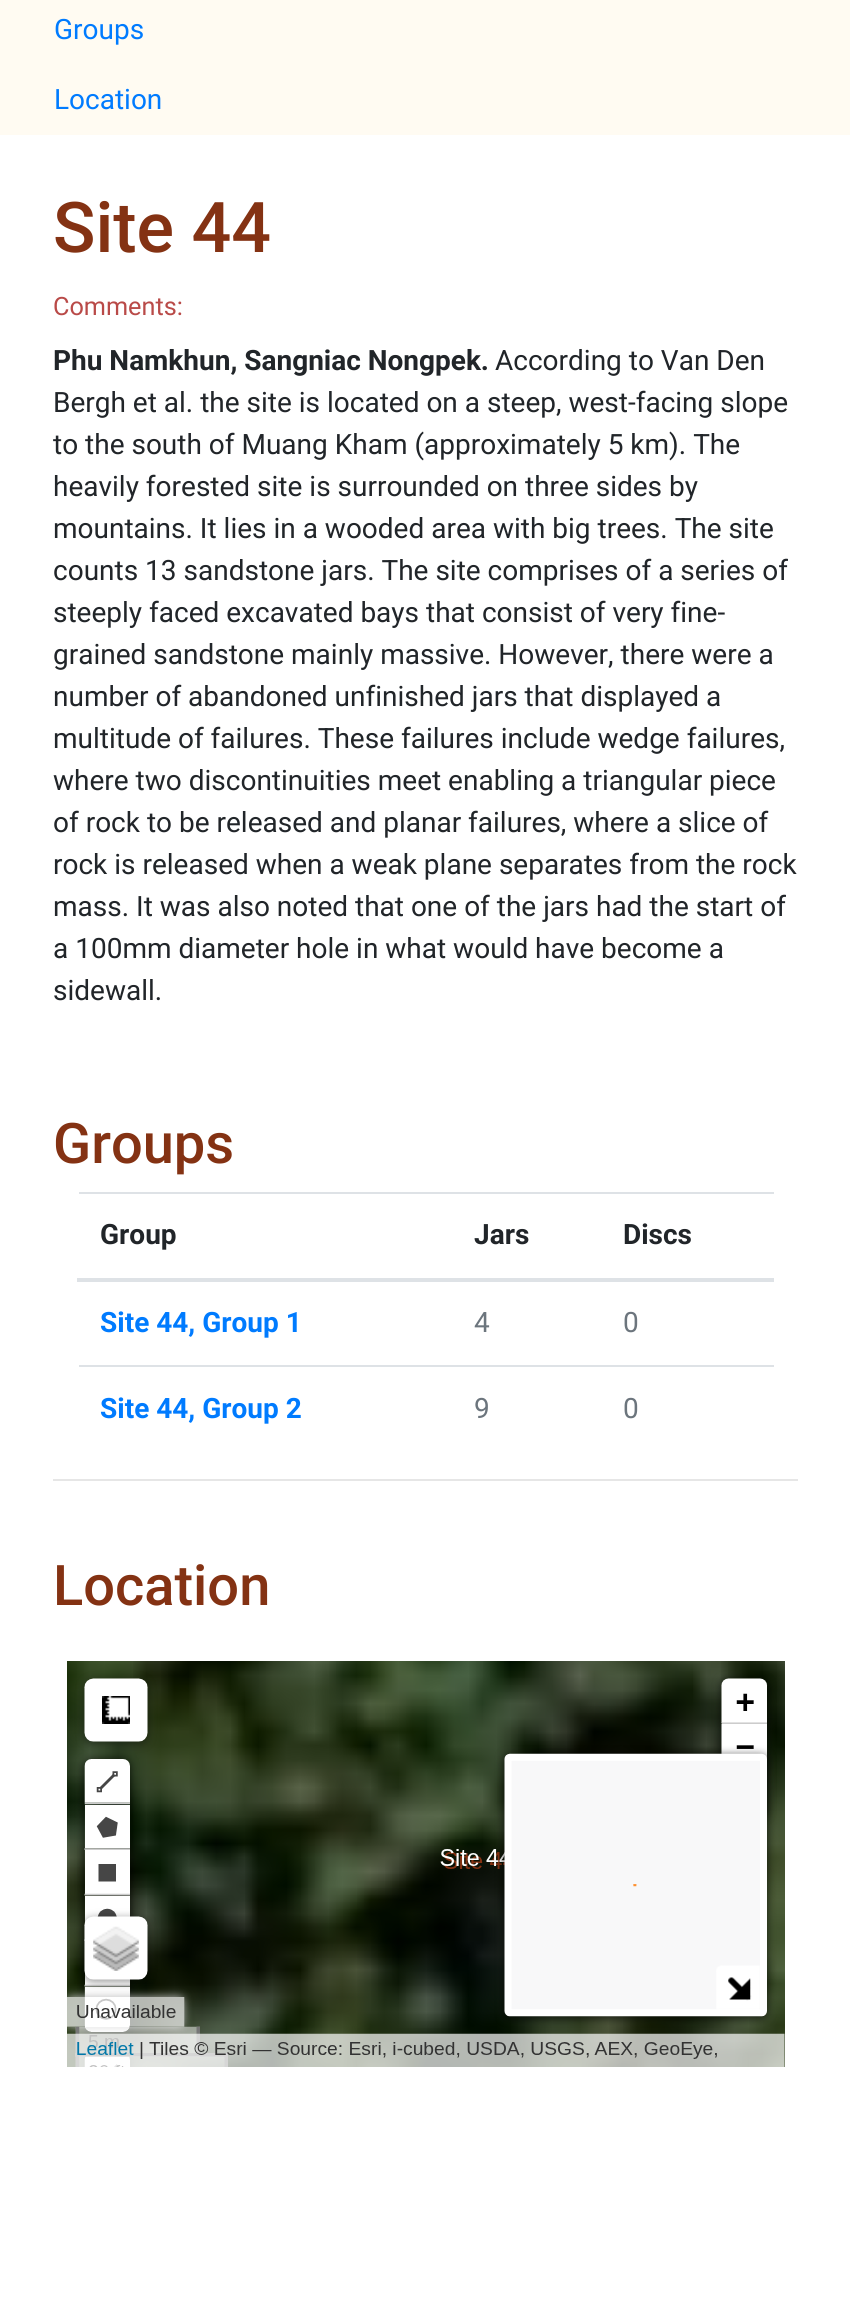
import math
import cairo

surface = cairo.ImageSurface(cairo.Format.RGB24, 850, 2298)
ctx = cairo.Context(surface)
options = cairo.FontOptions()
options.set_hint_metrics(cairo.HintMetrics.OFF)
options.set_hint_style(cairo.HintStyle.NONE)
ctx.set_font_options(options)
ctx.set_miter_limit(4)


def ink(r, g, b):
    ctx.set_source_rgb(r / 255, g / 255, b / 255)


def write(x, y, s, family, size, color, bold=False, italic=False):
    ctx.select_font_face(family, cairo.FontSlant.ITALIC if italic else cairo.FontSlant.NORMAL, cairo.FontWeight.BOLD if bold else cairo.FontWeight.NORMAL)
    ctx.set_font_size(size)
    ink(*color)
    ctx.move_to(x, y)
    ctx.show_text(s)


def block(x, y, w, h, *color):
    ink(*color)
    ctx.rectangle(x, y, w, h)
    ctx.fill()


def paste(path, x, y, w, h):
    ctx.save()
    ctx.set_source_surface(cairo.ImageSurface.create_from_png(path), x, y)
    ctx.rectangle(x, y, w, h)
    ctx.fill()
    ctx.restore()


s1 = dict(family="Roboto", size=28, color=(0, 123, 255))
s2 = dict(family="Roboto Medium", size=70, color=(132, 50, 19))
s3 = dict(family="Roboto", size=25.25, color=(185, 74, 72))
s4 = dict(family="Roboto", size=28, color=(33, 37, 41), bold=True)
s5 = dict(family="Roboto", size=28, color=(33, 37, 41))
s6 = dict(family="Roboto Medium", size=56, color=(132, 50, 19))
s7 = dict(family="Roboto", size=28, color=(0, 123, 255), bold=True)
s8 = dict(family="Roboto", size=28, color=(108, 117, 125))

ink(255, 255, 255)
ctx.paint()
block(0, 0, 850, 135, 255, 251, 242)
write(54, 39, "Groups", **s1)
write(54, 109, "Location", **s1)
write(53, 252, "Site 44", **s2)
write(53, 315, "Comments:", **s3)
write(53, 370, "Phu Namkhun, Sangniac Nongpek.", **s4)
write(495, 370, "According to Van Den", **s5)
write(53, 412, "Bergh et al. the site is located on a steep, west-facing slope", **s5)
write(53, 454, "to the south of Muang Kham (approximately 5 km). The", **s5)
write(53, 496, "heavily forested site is surrounded on three sides by", **s5)
write(53, 538, "mountains. It lies in a wooded area with big trees. The site", **s5)
write(53, 580, "counts 13 sandstone jars. The site comprises of a series of", **s5)
write(53, 622, "steeply faced excavated bays that consist of very fine-", **s5)
write(53, 664, "grained sandstone mainly massive. However, there were a", **s5)
write(53, 706, "number of abandoned unfinished jars that displayed a", **s5)
write(53, 748, "multitude of failures. These failures include wedge failures,", **s5)
write(53, 790, "where two discontinuities meet enabling a triangular piece", **s5)
write(53, 832, "of rock to be released and planar failures, where a slice of", **s5)
write(53, 874, "rock is released when a weak plane separates from the rock", **s5)
write(53, 916, "mass. It was also noted that one of the jars had the start of", **s5)
write(53, 958, "a 100mm diameter hole in what would have become a", **s5)
write(53, 1000, "sidewall.", **s5)
write(53, 1163, "Groups", **s6)
write(100, 1244, "Group", **s4)
write(474, 1244, "Jars", **s4)
block(79, 1192, 695, 2, 222, 226, 230)
block(77, 1278, 697, 4, 222, 226, 230)
write(623, 1244, "Discs", **s4)
write(100, 1332, "Site 44, Group 1", **s7)
write(474, 1332, "4", **s8)
write(623, 1332, "0", **s8)
write(100, 1418, "Site 44, Group 2", **s7)
write(474, 1418, "9", **s8)
block(79, 1365, 695, 2, 222, 226, 230)
write(623, 1418, "0", **s8)
block(53, 1479, 745, 2, 230, 230, 230)
write(53, 1605, "Location", **s6)
paste("pic1.png", 67, 1661, 718, 406)
surface.write_to_png("screenshot.png")
